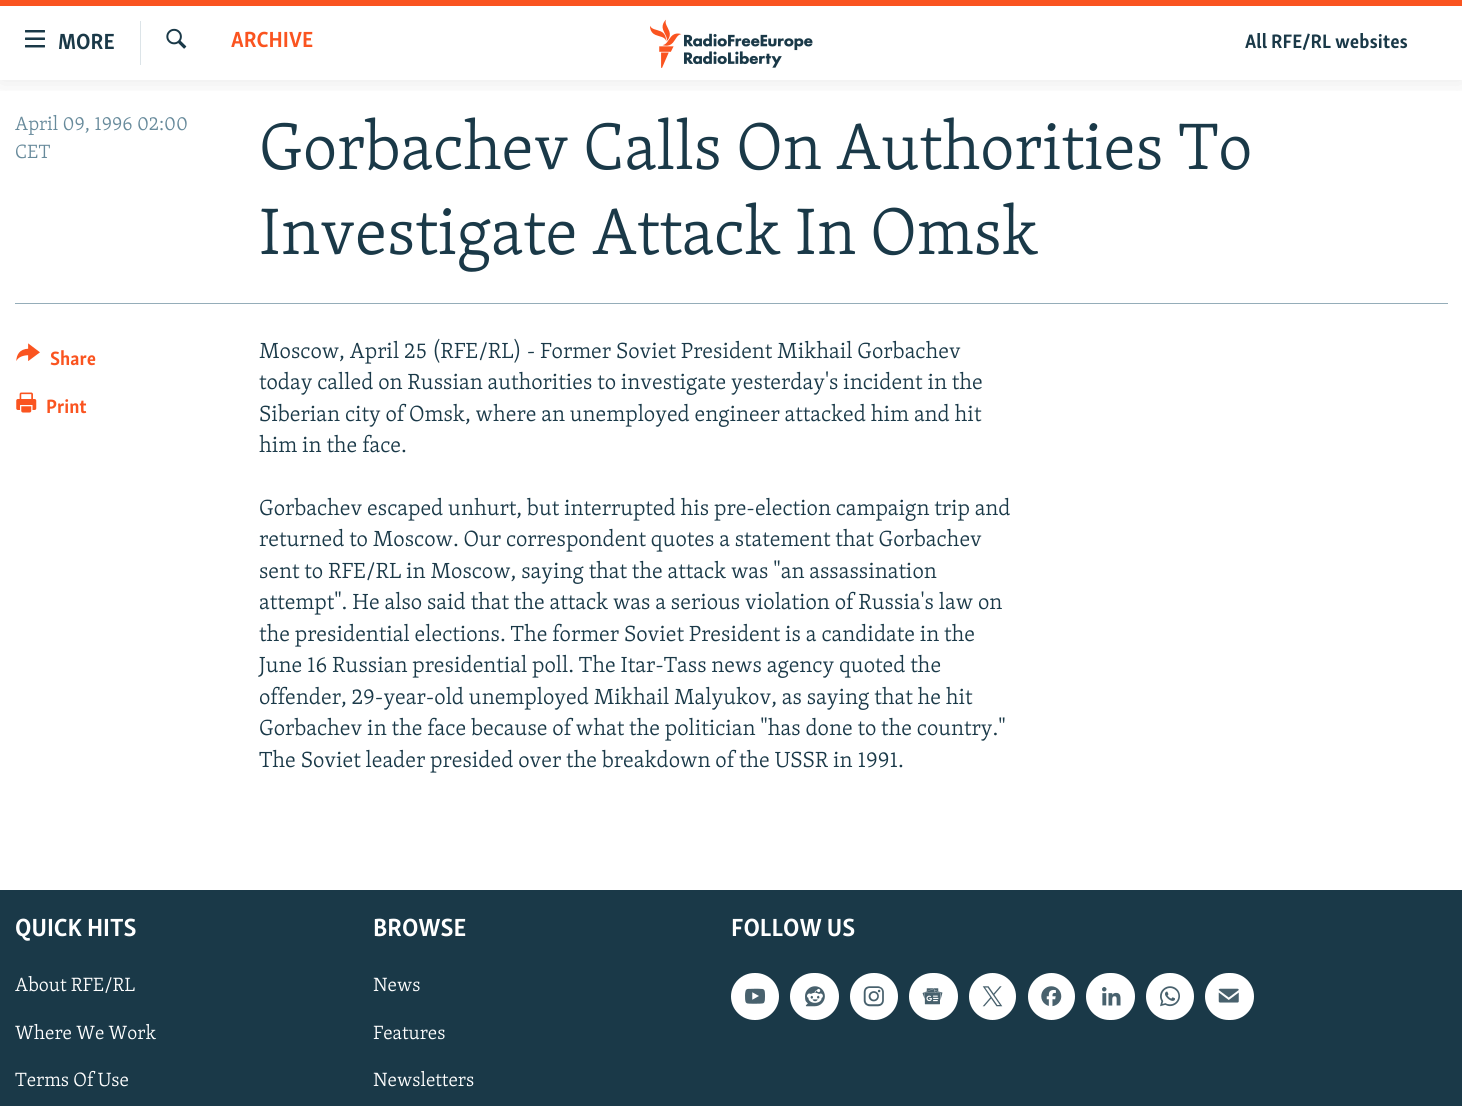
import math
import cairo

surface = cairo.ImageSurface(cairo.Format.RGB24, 1462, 1106)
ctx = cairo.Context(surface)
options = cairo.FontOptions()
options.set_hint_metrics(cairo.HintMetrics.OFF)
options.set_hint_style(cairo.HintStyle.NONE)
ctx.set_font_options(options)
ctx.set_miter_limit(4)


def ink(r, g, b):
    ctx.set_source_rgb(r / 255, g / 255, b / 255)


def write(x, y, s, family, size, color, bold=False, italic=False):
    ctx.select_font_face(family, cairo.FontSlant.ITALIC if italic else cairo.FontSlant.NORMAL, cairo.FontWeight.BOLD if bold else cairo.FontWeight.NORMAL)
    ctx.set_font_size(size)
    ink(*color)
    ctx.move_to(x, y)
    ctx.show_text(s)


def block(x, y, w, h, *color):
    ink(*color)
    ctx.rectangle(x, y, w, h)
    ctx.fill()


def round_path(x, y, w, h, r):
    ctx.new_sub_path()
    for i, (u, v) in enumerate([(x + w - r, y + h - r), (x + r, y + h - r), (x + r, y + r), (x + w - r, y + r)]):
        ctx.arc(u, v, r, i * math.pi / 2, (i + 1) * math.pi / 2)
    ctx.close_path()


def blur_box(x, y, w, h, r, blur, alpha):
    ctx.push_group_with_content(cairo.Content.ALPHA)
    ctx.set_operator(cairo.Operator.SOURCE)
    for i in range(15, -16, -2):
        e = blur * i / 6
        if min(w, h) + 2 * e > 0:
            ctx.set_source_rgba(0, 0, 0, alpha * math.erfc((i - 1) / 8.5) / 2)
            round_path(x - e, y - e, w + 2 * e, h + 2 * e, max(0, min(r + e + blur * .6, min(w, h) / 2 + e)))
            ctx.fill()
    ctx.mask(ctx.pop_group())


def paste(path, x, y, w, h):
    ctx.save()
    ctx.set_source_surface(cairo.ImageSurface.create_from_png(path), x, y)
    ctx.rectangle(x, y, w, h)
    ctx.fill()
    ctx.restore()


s1 = dict(family="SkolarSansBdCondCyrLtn", size=22.5, color=(26, 57, 72), bold=True)
s2 = dict(family="SkolarSansBdCondCyrLtn", size=22.5, color=(250, 84, 32), bold=True)
s3 = dict(family="SkolarSansBdCondCyrLtn", size=20, color=(26, 57, 72), bold=True)
s4 = dict(family="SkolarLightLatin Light", size=19.75, color=(103, 138, 155))
s5 = dict(family="SkolarLightLatin Light", size=67.5, color=(26, 57, 72))
s6 = dict(family="SkolarSansBdCondCyrLtn", size=19.75, color=(250, 84, 32), bold=True)
s7 = dict(family="SkolarLightLatin Light", size=22.5, color=(26, 57, 72))
s8 = dict(family="SkolarSansBdCondCyrLtn", size=25.5, color=(255, 255, 255), bold=True)
s9 = dict(family="SkolarLightLatin Light", size=19.75, color=(255, 255, 255))

ink(255, 255, 255)
ctx.paint()
ctx.save()
ctx.rectangle(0, 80, 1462, 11)
ctx.clip()
ink(0, 0, 0)
blur_box(0, 0, 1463, 80, 0, 12.5, 0.1)
ctx.restore()
block(0, 0, 1462, 6, 250, 84, 32)
paste("pic1.png", 25, 30, 20, 18)
write(58, 49, "MORE", **s1)
block(140, 21, 1, 44, 220, 228, 232)
paste("pic2.png", 166, 28, 21, 21)
write(231, 47, "ARCHIVE", **s2)
paste("pic3.png", 650, 19, 163, 49)
write(1245, 48, "All RFE/RL websites", **s3)
write(15, 130, "April 09, 1996 02:00", **s4)
write(15, 158, "CET", **s4)
write(259, 169, "Gorbachev Calls On Authorities To", **s5)
write(259, 254, "Investigate Attack In Omsk", **s5)
block(15, 303, 1433, 1, 149, 173, 185)
paste("pic4.png", 16, 343, 24, 18)
write(50, 365, "Share", **s6)
paste("pic5.png", 16, 392, 21, 21)
write(46, 413, "Print", **s6)
write(259, 358, "Moscow, April 25 (RFE/RL) - Former Soviet President Mikhail Gorbachev", **s7)
write(259, 389, "today called on Russian authorities to investigate yesterday's incident in the", **s7)
write(259, 421, "Siberian city of Omsk, where an unemployed engineer attacked him and hit", **s7)
write(259, 452, "him in the face.", **s7)
write(259, 515, "Gorbachev escaped unhurt, but interrupted his pre-election campaign trip and", **s7)
write(259, 546, "returned to Moscow. Our correspondent quotes a statement that Gorbachev", **s7)
write(259, 578, "sent to RFE/RL in Moscow, saying that the attack was \"an assassination", **s7)
write(259, 609, "attempt\". He also said that the attack was a serious violation of Russia's law on", **s7)
write(259, 641, "the presidential elections. The former Soviet President is a candidate in the", **s7)
write(259, 672, "June 16 Russian presidential poll. The Itar-Tass news agency quoted the", **s7)
write(259, 704, "offender, 29-year-old unemployed Mikhail Malyukov, as saying that he hit", **s7)
write(259, 735, "Gorbachev in the face because of what the politician \"has done to the country.\"", **s7)
write(259, 767, "The Soviet leader presided over the breakdown of the USSR in 1991.", **s7)
block(0, 890, 1462, 216, 26, 57, 72)
write(15, 936, "QUICK HITS", **s8)
write(15, 991, "About RFE/RL", **s9)
write(15, 1039, "Where We Work", **s9)
write(15, 1086, "Terms Of Use", **s9)
write(373, 936, "BROWSE", **s8)
write(373, 991, "News", **s9)
write(373, 1039, "Features", **s9)
write(373, 1086, "Newsletters", **s9)
write(731, 936, "FOLLOW US", **s8)
round_path(731, 973, 48, 47, 23.5)
ctx.fill()
paste("pic6.png", 745, 988, 20, 16)
round_path(790, 973, 49, 47, 23.5)
ctx.fill()
paste("pic7.png", 805, 986, 20, 21)
round_path(850, 973, 48, 47, 23.5)
ctx.fill()
paste("pic8.png", 863, 986, 21, 21)
round_path(909, 973, 49, 47, 23.5)
ctx.fill()
paste("pic9.png", 922, 988, 21, 17)
ctx.arc(992.5, 996.5, 23.5, 0, 2 * math.pi)
ctx.fill()
paste("pic10.png", 982, 986, 21, 21)
ctx.arc(1051.5, 996.5, 23.5, 0, 2 * math.pi)
ctx.fill()
paste("pic11.png", 1041, 986, 21, 21)
round_path(1086, 973, 49, 47, 23.5)
ctx.fill()
paste("pic12.png", 1102, 987, 19, 19)
round_path(1146, 973, 48, 47, 23.5)
ctx.fill()
paste("pic13.png", 1160, 986, 20, 21)
round_path(1205, 973, 49, 47, 23.5)
ctx.fill()
paste("pic14.png", 1218, 988, 21, 15)
surface.write_to_png("screenshot.png")
